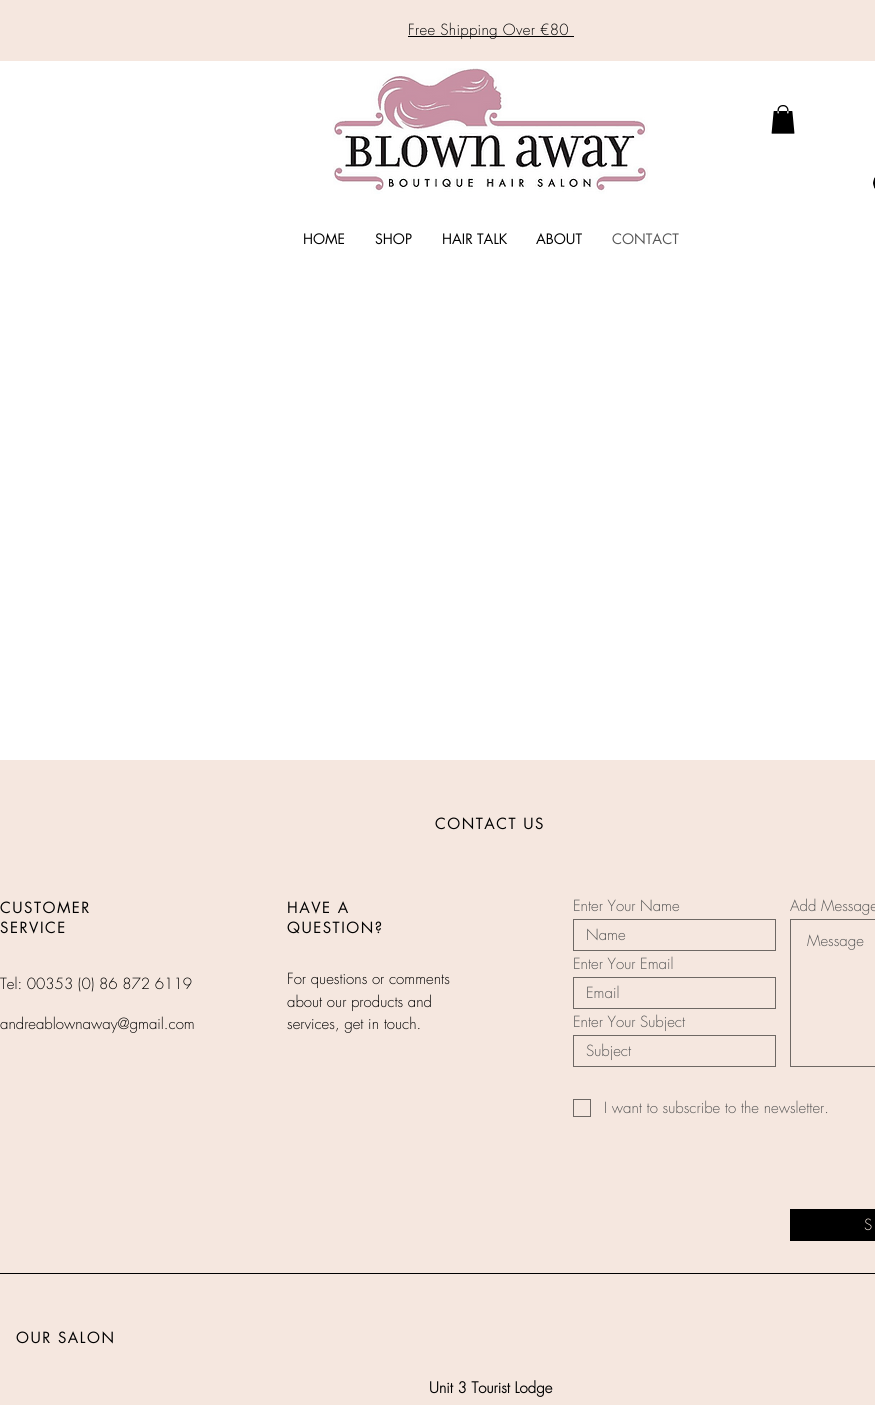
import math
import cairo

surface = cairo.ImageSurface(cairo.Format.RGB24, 875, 1405)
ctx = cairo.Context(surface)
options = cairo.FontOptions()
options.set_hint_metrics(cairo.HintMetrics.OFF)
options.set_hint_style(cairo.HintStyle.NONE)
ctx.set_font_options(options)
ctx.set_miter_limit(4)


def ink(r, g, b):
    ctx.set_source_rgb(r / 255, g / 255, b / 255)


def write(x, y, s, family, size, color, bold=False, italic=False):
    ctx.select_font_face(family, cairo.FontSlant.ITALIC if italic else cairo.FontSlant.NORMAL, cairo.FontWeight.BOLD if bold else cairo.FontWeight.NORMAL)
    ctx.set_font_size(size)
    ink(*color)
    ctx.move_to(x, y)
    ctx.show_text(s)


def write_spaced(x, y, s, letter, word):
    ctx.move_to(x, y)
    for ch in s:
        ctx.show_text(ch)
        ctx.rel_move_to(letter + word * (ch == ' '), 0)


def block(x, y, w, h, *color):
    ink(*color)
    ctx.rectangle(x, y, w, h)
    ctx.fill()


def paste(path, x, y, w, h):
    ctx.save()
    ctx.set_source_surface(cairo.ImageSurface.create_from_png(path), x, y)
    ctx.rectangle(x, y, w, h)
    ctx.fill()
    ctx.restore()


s1 = dict(family="futura", size=14, color=(0, 0, 0))
s2 = dict(family="futura", size=14, color=(85, 85, 85))
s3 = dict(family="futura Light", size=15, color=(85, 85, 85))
s4 = dict(family="futura Light", size=15, color=(245, 231, 223))
s5 = dict(family="futura Light", size=15, color=(0, 0, 0))
s6 = dict(family="futura", size=15, color=(0, 0, 0), bold=True)

ink(255, 255, 255)
ctx.paint()
block(0, 0, 875, 61, 245, 231, 223)
block(408, 36, 166, 1, 0, 0, 0)
ctx.select_font_face("futura Light")
ctx.set_font_size(15)
write_spaced(408, 35, "Free Shipping Over €80", 0.3, 0)
paste("pic1.png", 333, 68, 315, 126)
paste("pic2.png", 873, 177, 2, 12)
write(303, 244, "HOME", **s1)
write(375, 244, "SHOP", **s1)
write(442, 244, "HAIR TALK", **s1)
write(536, 244, "ABOUT", **s1)
write(612, 244, "CONTACT", **s2)
paste("pic3.png", 771, 105, 24, 29)
block(0, 760, 875, 645, 245, 231, 223)
ctx.set_font_size(15)
ink(0, 0, 0)
write_spaced(435, 829, "CONTACT US", 1.5, 0)
write_spaced(0, 913, "CUSTOMER", 1.5, 0)
write_spaced(0, 933, "SERVICE", 1.5, 0)
write_spaced(287, 913, "HAVE A", 1.5, 0)
write_spaced(287, 933, "QUESTION?", 1.5, 0)
write(573, 911, "Enter Your Name", **s3)
ctx.rectangle(573.5, 919.5, 202, 31)
ink(110, 104, 100)
ctx.set_line_width(1)
ctx.stroke()
write(586, 940, "Name", **s3)
write(790, 911, "Add Message", **s3)
ctx.rectangle(790.5, 919.5, 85, 147)
ink(110, 104, 100)
ctx.stroke()
write(807, 946, "Message", **s3)
write(573, 969, "Enter Your Email", **s3)
ctx.rectangle(573.5, 977.5, 202, 31)
ink(110, 104, 100)
ctx.stroke()
write(586, 998, "Email", **s3)
write(573, 1027, "Enter Your Subject", **s3)
ctx.rectangle(573.5, 1035.5, 202, 31)
ink(110, 104, 100)
ctx.stroke()
write(586, 1056, "Subject", **s3)
ctx.rectangle(573.5, 1099.5, 17, 17)
ink(110, 104, 100)
ctx.stroke()
write(604, 1113, "I want to subscribe to the newsletter.", **s3)
block(790, 1209, 85, 32, 0, 0, 0)
write(864, 1230, "S", **s4)
write(0, 989, "Tel: 00353 (0) 86 872 6119", **s5)
write(0, 1029, "andreablownaway@gmail.com", **s5)
write(287, 984, "For questions or comments", **s5)
write(287, 1007, "about our products and", **s5)
write(287, 1029, "services, get in touch.", **s5)
ctx.select_font_face("futura")
write_spaced(16, 1343, "OUR SALON", 1.5, 0)
write(429, 1393, "Unit 3 Tourist Lodge", **s6)
block(0, 1273, 875, 1, 0, 0, 0)
surface.write_to_png("screenshot.png")
